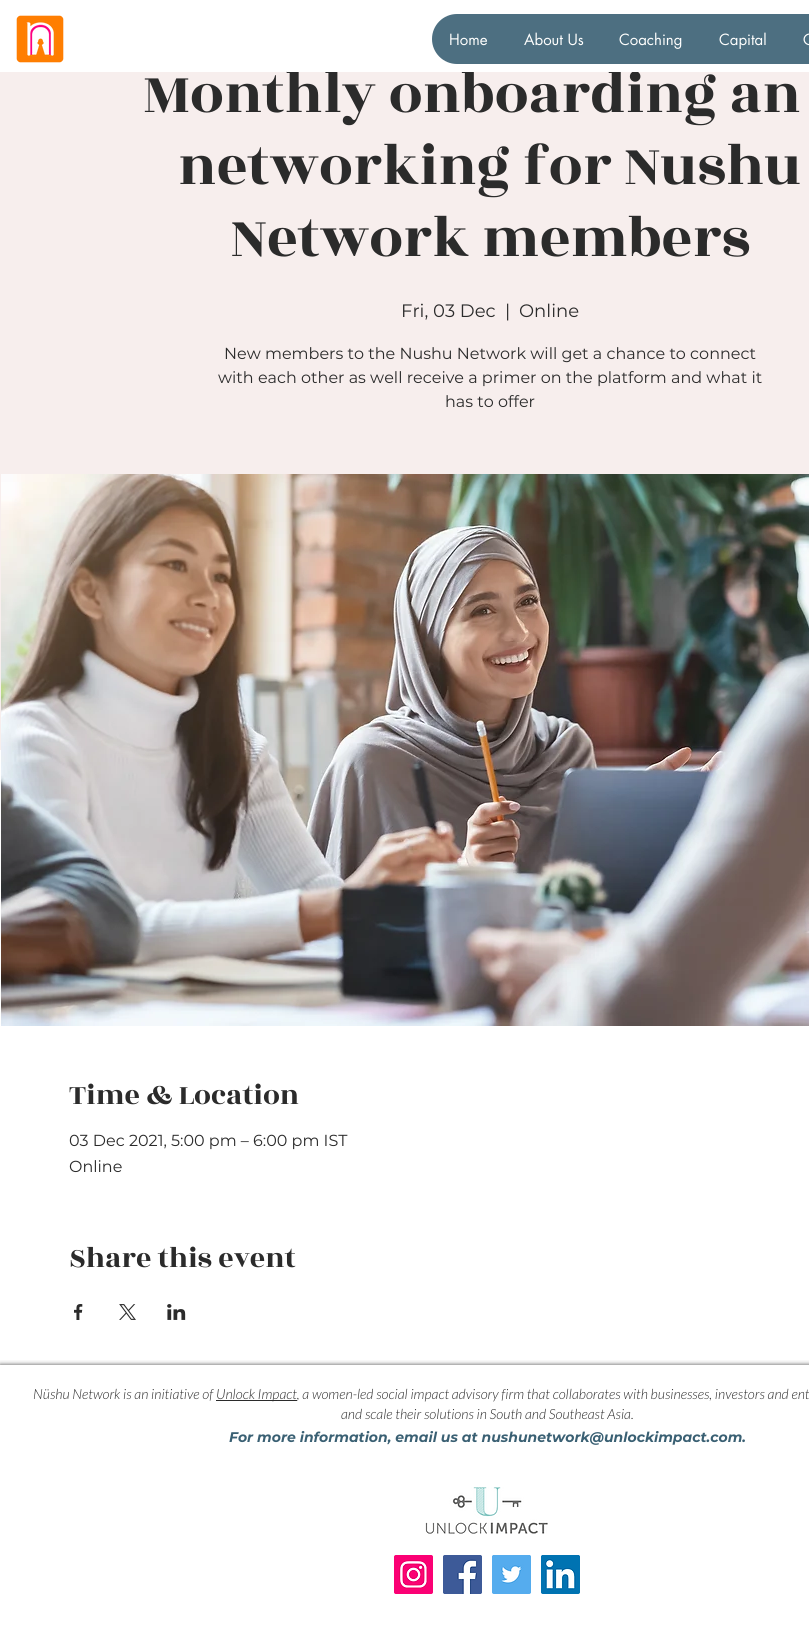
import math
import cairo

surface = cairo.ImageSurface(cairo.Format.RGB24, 809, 1633)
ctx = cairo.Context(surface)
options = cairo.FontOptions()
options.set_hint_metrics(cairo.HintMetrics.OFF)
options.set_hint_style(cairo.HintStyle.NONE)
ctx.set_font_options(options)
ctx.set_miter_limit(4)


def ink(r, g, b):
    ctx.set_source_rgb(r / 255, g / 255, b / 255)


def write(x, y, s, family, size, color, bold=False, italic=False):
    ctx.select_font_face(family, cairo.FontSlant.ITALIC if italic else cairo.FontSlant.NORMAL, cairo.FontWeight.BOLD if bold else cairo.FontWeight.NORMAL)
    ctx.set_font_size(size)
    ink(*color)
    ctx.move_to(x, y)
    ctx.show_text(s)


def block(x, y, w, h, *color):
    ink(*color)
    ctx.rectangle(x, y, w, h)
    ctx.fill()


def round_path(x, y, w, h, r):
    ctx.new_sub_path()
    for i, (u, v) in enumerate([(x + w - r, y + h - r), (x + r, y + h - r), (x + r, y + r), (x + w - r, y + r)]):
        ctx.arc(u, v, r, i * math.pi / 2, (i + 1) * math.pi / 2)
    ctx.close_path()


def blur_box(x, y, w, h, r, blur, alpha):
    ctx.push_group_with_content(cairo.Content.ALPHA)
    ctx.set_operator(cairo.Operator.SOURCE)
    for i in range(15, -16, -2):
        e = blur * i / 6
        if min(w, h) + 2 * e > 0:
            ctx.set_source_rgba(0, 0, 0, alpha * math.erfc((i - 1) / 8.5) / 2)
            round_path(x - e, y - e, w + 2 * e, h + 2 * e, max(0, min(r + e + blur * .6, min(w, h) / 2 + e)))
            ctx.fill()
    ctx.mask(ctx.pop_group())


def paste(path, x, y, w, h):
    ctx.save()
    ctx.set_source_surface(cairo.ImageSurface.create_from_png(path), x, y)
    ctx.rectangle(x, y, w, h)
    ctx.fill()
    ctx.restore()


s1 = dict(family="futura", size=15, color=(255, 255, 254))
s2 = dict(family="Rozha One", size=60, color=(43, 43, 43))
s3 = dict(family="Montserrat", size=18, color=(43, 43, 43))
s4 = dict(family="Montserrat", size=16, color=(43, 43, 43))
s5 = dict(family="Rozha One", size=30, color=(43, 43, 43))
s6 = dict(family="Lato Light", size=14, color=(43, 43, 43), italic=True)
s7 = dict(family="Montserrat", size=14, color=(58, 96, 115), bold=True, italic=True)

ink(255, 255, 255)
ctx.paint()
paste("pic1.png", 16, 15, 48, 48)
ink(77, 111, 129)
round_path(432, 14, 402, 50, 25)
ctx.fill()
write(449, 45, "Home", **s1)
write(524, 45, "About Us", **s1)
write(619, 45, "Coaching", **s1)
write(719, 45, "Capital", **s1)
write(803, 45, "C", **s1)
block(0, 72, 809, 678, 247, 238, 237)
write(143, 112, "Monthly onboarding an", **s2)
block(287, 71, 352, 1, 255, 255, 255)
write(178, 184, "networking for Nushu", **s2)
write(231, 256, "Network members", **s2)
write(401, 317, "Fri, 03 Dec", **s3)
write(505, 317, "|", **s3)
write(519, 317, "Online", **s3)
write(224, 359, "New members to the Nushu Network will get a chance to connect", **s4)
write(218, 383, "with each other as well receive a primer on the platform and what it", **s4)
write(445, 407, "has to offer", **s4)
paste("pic2.png", 1, 474, 808, 552)
write(69, 1104, "Time & Location", **s5)
write(69, 1146, "03 Dec 2021, 5:00 pm – 6:00 pm IST", **s4)
write(69, 1172, "Online", **s4)
write(69, 1267, "Share this event", **s5)
paste("pic3.png", 74, 1304, 9, 16)
paste("pic4.png", 119, 1304, 17, 16)
paste("pic5.png", 167, 1304, 19, 16)
ctx.save()
ctx.rectangle(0, 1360, 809, 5)
ctx.clip()
ink(0, 0, 0)
blur_box(0, 1365, 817, 268, 0, 2.5, 0.7)
ctx.restore()
write(33, 1399, "Nüshu Network is an initiative of", **s6)
block(216, 1400, 81, 1, 43, 43, 43)
write(216, 1399, "Unlock Impact, a women-led social impact advisory firm that collaborates with businesses, investors and ent", **s6)
write(341, 1419, "and scale their solutions in South and Southeast Asia.", **s6)
write(229, 1442, "For more information, email us at nushunetwork@unlockimpact.com.", **s7)
paste("pic6.png", 425, 1487, 123, 47)
paste("pic7.png", 394, 1555, 39, 39)
paste("pic8.png", 443, 1555, 39, 39)
paste("pic9.png", 492, 1555, 39, 39)
paste("pic10.png", 541, 1555, 39, 39)
surface.write_to_png("screenshot.png")
